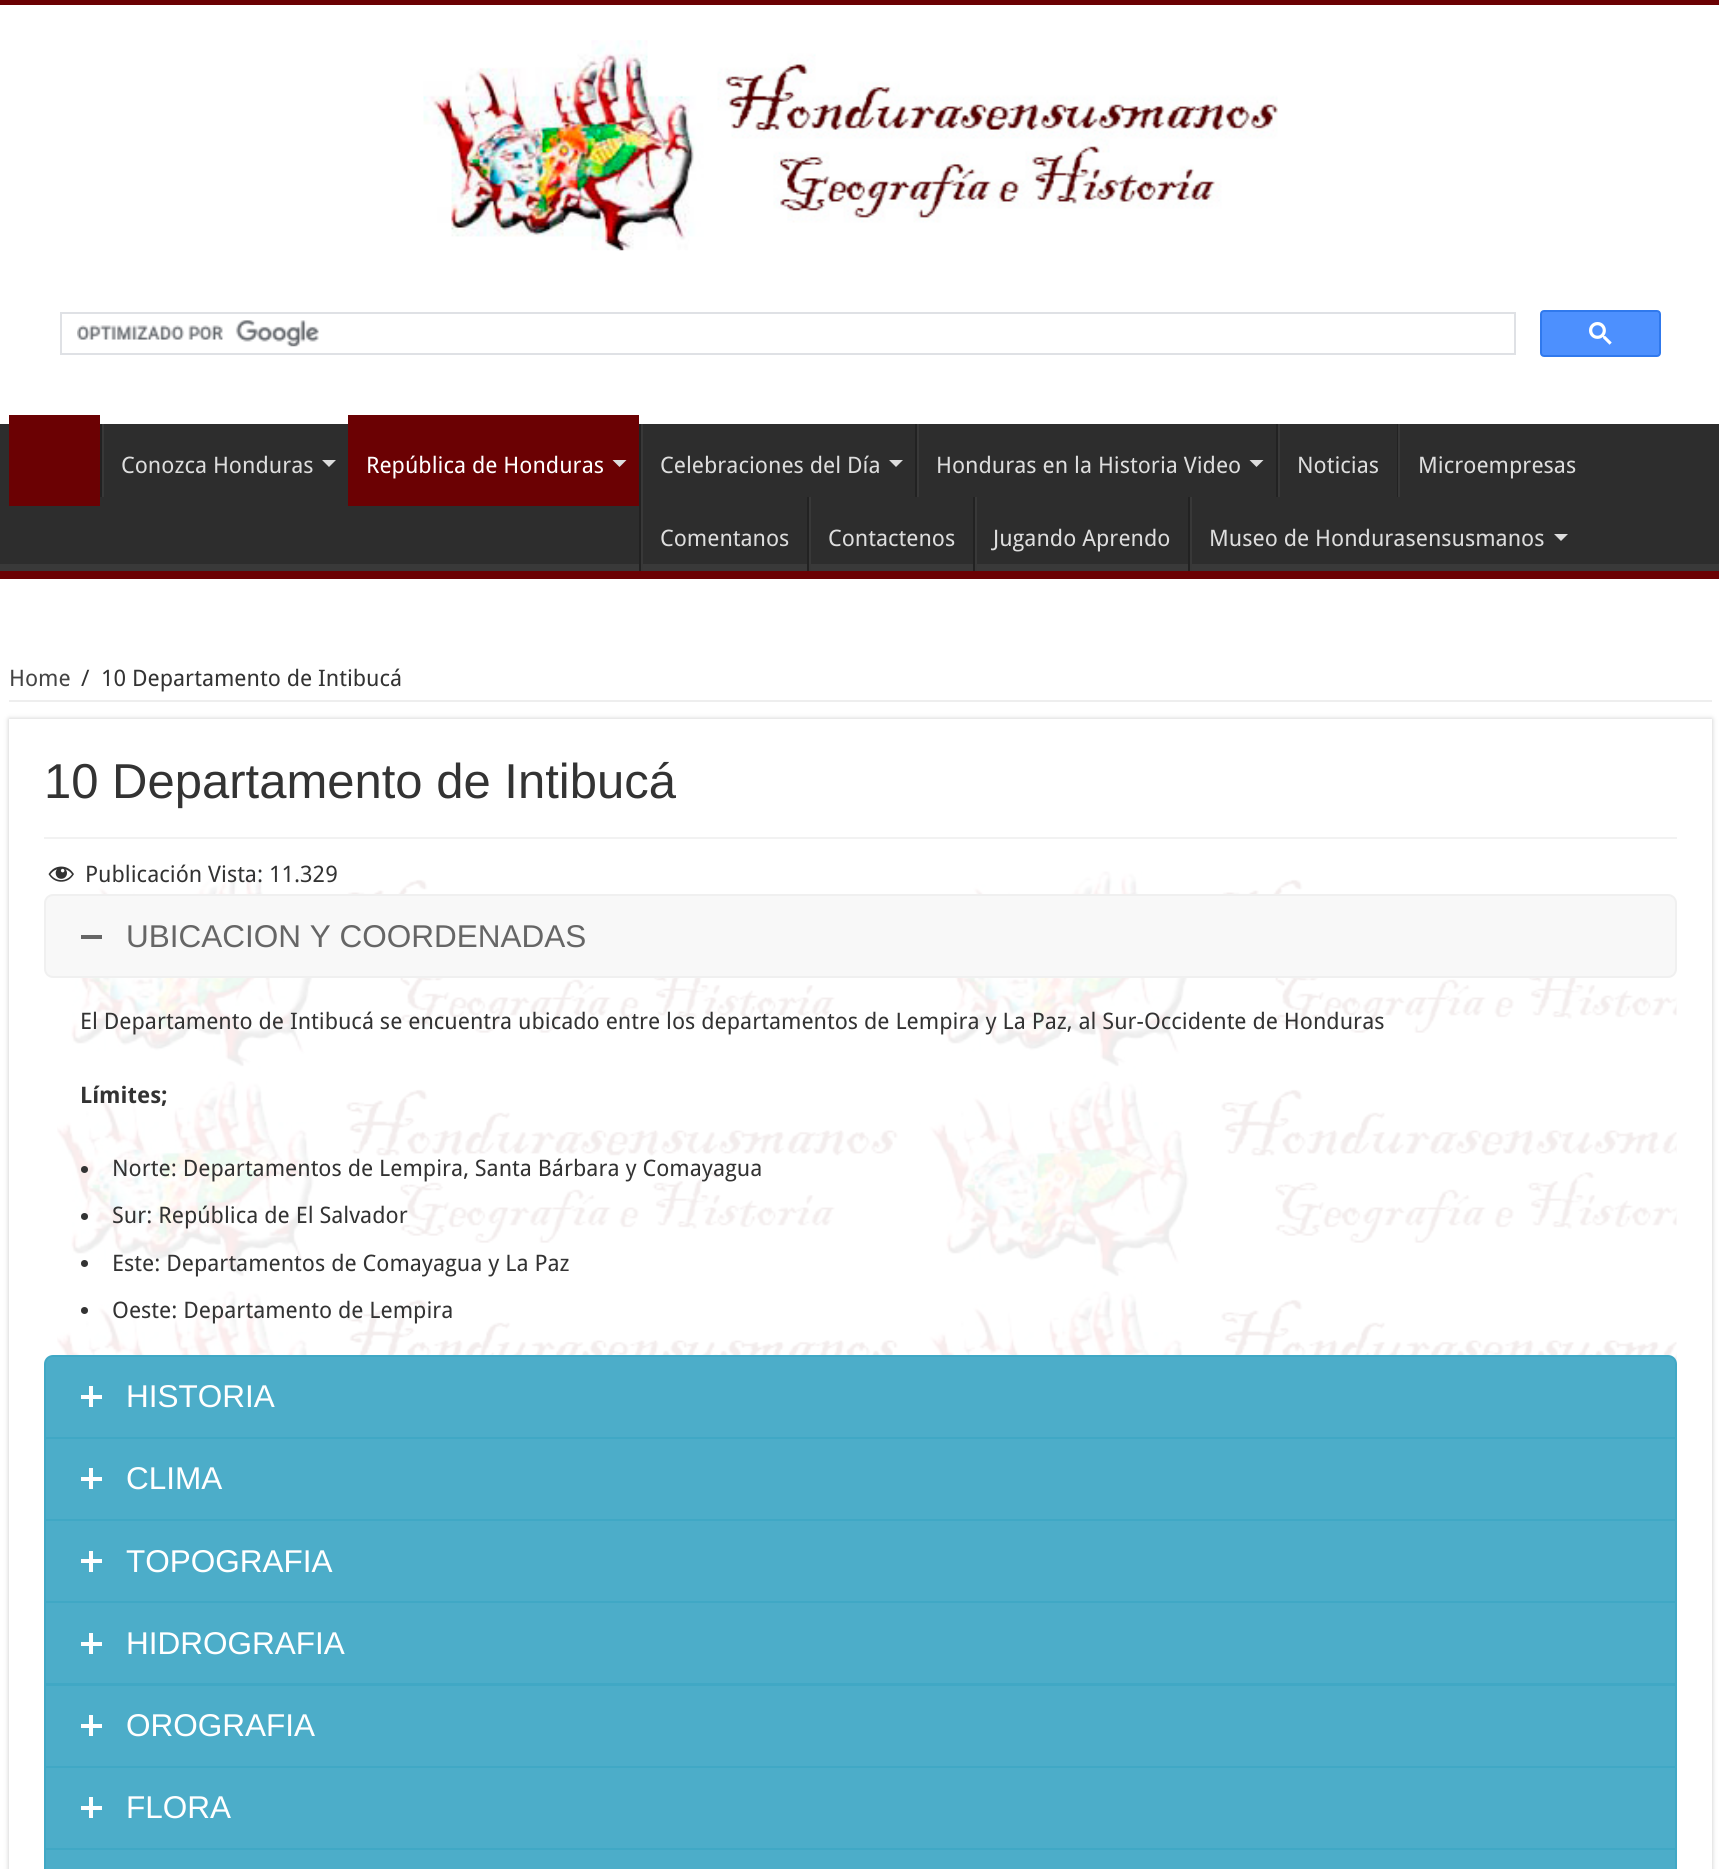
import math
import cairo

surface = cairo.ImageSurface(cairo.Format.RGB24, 1719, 1869)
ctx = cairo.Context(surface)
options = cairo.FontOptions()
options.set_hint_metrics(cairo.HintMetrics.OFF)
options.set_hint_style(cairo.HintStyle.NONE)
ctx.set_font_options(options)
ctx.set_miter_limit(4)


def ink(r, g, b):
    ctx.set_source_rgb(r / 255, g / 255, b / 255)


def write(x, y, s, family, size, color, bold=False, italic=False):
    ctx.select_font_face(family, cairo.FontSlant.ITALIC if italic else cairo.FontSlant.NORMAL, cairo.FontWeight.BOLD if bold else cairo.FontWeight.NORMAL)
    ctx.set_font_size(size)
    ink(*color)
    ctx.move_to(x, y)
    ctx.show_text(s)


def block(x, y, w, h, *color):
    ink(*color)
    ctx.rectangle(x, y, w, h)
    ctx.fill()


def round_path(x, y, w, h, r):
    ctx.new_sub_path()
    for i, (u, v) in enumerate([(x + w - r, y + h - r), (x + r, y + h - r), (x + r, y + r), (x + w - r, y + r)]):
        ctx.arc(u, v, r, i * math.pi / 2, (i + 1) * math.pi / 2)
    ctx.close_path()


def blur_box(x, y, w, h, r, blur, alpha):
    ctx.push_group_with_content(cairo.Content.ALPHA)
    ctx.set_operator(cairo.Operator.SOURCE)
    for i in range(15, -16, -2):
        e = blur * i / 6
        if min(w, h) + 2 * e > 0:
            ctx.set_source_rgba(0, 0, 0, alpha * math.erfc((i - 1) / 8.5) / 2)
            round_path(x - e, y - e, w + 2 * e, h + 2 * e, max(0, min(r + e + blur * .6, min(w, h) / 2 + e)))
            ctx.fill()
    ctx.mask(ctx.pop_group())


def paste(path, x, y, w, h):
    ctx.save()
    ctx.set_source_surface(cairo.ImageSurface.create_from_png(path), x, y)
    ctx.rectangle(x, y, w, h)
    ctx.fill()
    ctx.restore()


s1 = dict(family="Droid Sans", size=22.75, color=(221, 221, 221))
s2 = dict(family="Droid Sans", size=22.75, color=(255, 255, 255))
s3 = dict(family="Droid Sans", size=22.75, color=(68, 68, 68))
s4 = dict(family="Droid Sans", size=22.75, color=(51, 51, 51))
s5 = dict(family="Liberation Sans", size=49, color=(51, 51, 51))
s6 = dict(family="Liberation Sans", size=31.5, color=(102, 102, 102))
s7 = dict(family="Droid Sans", size=22.75, color=(51, 51, 51), bold=True)
s8 = dict(family="Liberation Sans", size=31.5, color=(255, 255, 255))

ink(255, 255, 255)
ctx.paint()
block(0, 0, 1719, 5, 107, 1, 3)
paste("pic1.png", 423, 40, 855, 211)
ctx.rectangle(61, 313, 1454, 41)
ink(223, 225, 229)
ctx.stroke()
paste("pic2.png", 77, 320, 242, 27)
ink(77, 144, 254)
round_path(1541, 311, 119, 45, 3)
ctx.fill_preserve()
ink(48, 121, 237)
ctx.stroke()
paste("pic3.png", 1589, 322, 23, 23)
block(0, 424, 1719, 140, 45, 45, 45)
ctx.save()
ctx.rectangle(0, 424, 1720, 147)
ctx.clip()
ink(57, 57, 57)
ctx.set_fill_rule(cairo.FillRule.EVEN_ODD)
ctx.new_path()
ctx.move_to(-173, 250)
ctx.line_to(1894, 250)
ctx.line_to(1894, 744)
ctx.line_to(-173, 744)
ctx.close_path()
ctx.move_to(-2, 413)
ctx.line_to(1718, 413)
ctx.curve_to(1719, 413, 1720, 414, 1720, 415)
ctx.line_to(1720, 562)
ctx.curve_to(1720, 563, 1719, 564, 1718, 564)
ctx.line_to(-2, 564)
ctx.curve_to(-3, 564, -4, 563, -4, 562)
ctx.line_to(-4, 415)
ctx.curve_to(-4, 414, -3, 413, -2, 413)
ctx.close_path()
ctx.fill()
ctx.restore()
block(0, 571, 1719, 8, 107, 1, 3)
block(9, 415, 91, 91, 107, 1, 3)
block(100, 424, 2, 73, 34, 34, 34)
block(102, 424, 2, 73, 56, 56, 56)
write(121, 473, "Conozca Honduras", **s1)
ctx.new_path()
ctx.move_to(322, 460)
ctx.line_to(336, 460)
ctx.line_to(329, 467)
ctx.close_path()
ctx.fill()
block(348, 415, 291, 91, 107, 1, 3)
write(366, 473, "República de Honduras", **s2)
ink(221, 221, 221)
ctx.new_path()
ctx.move_to(612.5, 460)
ctx.line_to(626.5, 460)
ctx.line_to(619.5, 467)
ctx.close_path()
ctx.fill()
block(639, 424, 2, 147, 34, 34, 34)
block(641, 424, 2, 147, 56, 56, 56)
write(660, 473, "Celebraciones del Día", **s1)
ctx.new_path()
ctx.move_to(889, 460)
ctx.line_to(903, 460)
ctx.line_to(896, 467)
ctx.close_path()
ctx.fill()
block(915, 424, 2, 73, 34, 34, 34)
block(917, 424, 2, 73, 56, 56, 56)
write(936, 473, "Honduras en la Historia Video", **s1)
ctx.new_path()
ctx.move_to(1249.5, 460)
ctx.line_to(1263.5, 460)
ctx.line_to(1256.5, 467)
ctx.close_path()
ctx.fill()
block(1276, 424, 2, 73, 34, 34, 34)
block(1278, 424, 2, 73, 56, 56, 56)
write(1297, 473, "Noticias", **s1)
block(1397, 424, 1, 73, 34, 34, 34)
block(1398, 424, 2, 73, 56, 56, 56)
write(1418, 473, "Microempresas", **s1)
write(660, 546, "Comentanos", **s1)
block(807, 497, 2, 74, 34, 34, 34)
block(809, 497, 2, 74, 56, 56, 56)
write(828, 546, "Contactenos", **s1)
block(973, 497, 2, 74, 34, 34, 34)
block(975, 497, 2, 74, 56, 56, 56)
write(993, 546, "Jugando Aprendo", **s1)
block(1188, 497, 2, 74, 34, 34, 34)
block(1190, 497, 2, 74, 56, 56, 56)
write(1209, 546, "Museo de Hondurasensusmanos", **s1)
ctx.new_path()
ctx.move_to(1554, 534)
ctx.line_to(1568, 534)
ctx.line_to(1561, 541)
ctx.close_path()
ctx.fill()
block(9, 700, 1703, 2, 238, 238, 238)
write(9, 686, "Home", **s3)
write(81, 686, "/", **s4)
write(101, 686, "10 Departamento de Intibucá", **s4)
ink(202, 202, 202)
blur_box(9, 719, 1703, 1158, 0, 2.5, 1)
block(9, 719, 1703, 1150, 255, 255, 255)
write(44, 798, "10 Departamento de Intibucá", **s5)
block(44, 837, 1633, 2, 242, 242, 242)
paste("pic5.png", 57, 871, 1620, 493)
paste("pic4.png", 48, 866, 26, 16)
write(85, 882, "Publicación Vista: 11.329", **s4)
ink(248, 248, 248)
round_path(45, 895, 1631, 82, 8)
ctx.fill_preserve()
ink(240, 240, 240)
ctx.stroke()
block(81, 935, 21, 4, 102, 102, 102)
write(126, 947, "UBICACION Y COORDENADAS", **s6)
write(80, 1029, "El Departamento de Intibucá se encuentra ubicado entre los departamentos de Lempira y La Paz, al Sur-Occidente de Honduras", **s4)
write(80, 1103, "Límites;", **s7)
ctx.new_path()
ctx.arc(84.5, 1169.5, 3.5, 0, 2 * math.pi)
ctx.fill()
write(112, 1176, "Norte: Departamentos de Lempira, Santa Bárbara y Comayagua", **s4)
ctx.new_path()
ctx.arc(84.5, 1216.5, 3.5, 0, 2 * math.pi)
ctx.fill()
write(112, 1223, "Sur: República de El Salvador", **s4)
ctx.new_path()
ctx.arc(84.5, 1263.5, 3.5, 0, 2 * math.pi)
ctx.fill()
write(112, 1271, "Este: Departamentos de Comayagua y La Paz", **s4)
ctx.new_path()
ctx.arc(84.5, 1310.5, 3.5, 0, 2 * math.pi)
ctx.fill()
write(112, 1318, "Oeste: Departamento de Lempira", **s4)
ink(76, 173, 201)
ctx.new_path()
ctx.move_to(53, 1356)
ctx.line_to(1668, 1356)
ctx.curve_to(1672.5, 1356, 1676, 1359.5, 1676, 1364)
ctx.line_to(1676, 1438)
ctx.line_to(45, 1438)
ctx.line_to(45, 1364)
ctx.curve_to(45, 1359.5, 48.5, 1356, 53, 1356)
ctx.close_path()
ctx.fill_preserve()
ink(64, 168, 197)
ctx.stroke()
block(81, 1395, 21, 4, 255, 255, 255)
block(89, 1386, 4, 21, 255, 255, 255)
write(126, 1407, "HISTORIA", **s8)
ink(76, 173, 201)
ctx.rectangle(45, 1438, 1631, 82)
ctx.fill_preserve()
ink(64, 168, 197)
ctx.stroke()
block(81, 1477, 21, 4, 255, 255, 255)
block(89, 1468, 4, 21, 255, 255, 255)
write(126, 1489, "CLIMA", **s8)
ink(76, 173, 201)
ctx.rectangle(45, 1520, 1631, 82)
ctx.fill_preserve()
ink(64, 168, 197)
ctx.stroke()
block(81, 1559, 21, 4, 255, 255, 255)
block(89, 1551, 4, 21, 255, 255, 255)
write(126, 1572, "TOPOGRAFIA", **s8)
ink(76, 173, 201)
ctx.rectangle(45, 1602, 1631, 82)
ctx.fill_preserve()
ink(64, 168, 197)
ctx.stroke()
block(81, 1642, 21, 4, 255, 255, 255)
block(89, 1633, 4, 21, 255, 255, 255)
write(126, 1654, "HIDROGRAFIA", **s8)
ink(76, 173, 201)
ctx.rectangle(45, 1685, 1631, 82)
ctx.fill_preserve()
ink(64, 168, 197)
ctx.stroke()
block(81, 1724, 21, 4, 255, 255, 255)
block(89, 1715, 4, 21, 255, 255, 255)
write(126, 1736, "OROGRAFIA", **s8)
ink(76, 173, 201)
ctx.rectangle(45, 1767, 1631, 82)
ctx.fill_preserve()
ink(64, 168, 197)
ctx.stroke()
block(81, 1806, 21, 4, 255, 255, 255)
block(89, 1797, 4, 21, 255, 255, 255)
write(126, 1818, "FLORA", **s8)
ink(76, 173, 201)
ctx.rectangle(45, 1849, 1631, 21)
ctx.fill_preserve()
ink(64, 168, 197)
ctx.stroke()
surface.write_to_png("screenshot.png")
